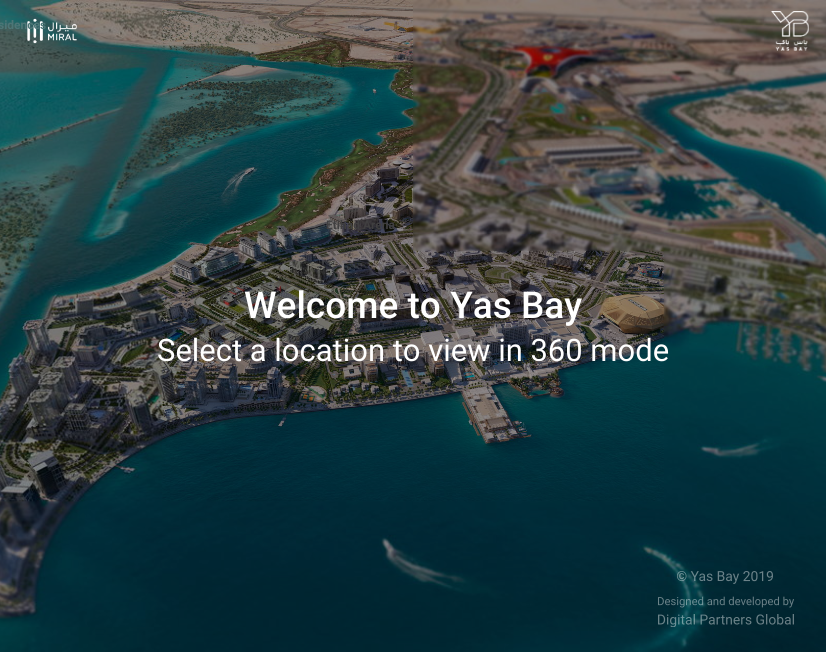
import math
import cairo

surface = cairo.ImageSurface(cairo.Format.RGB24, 826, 652)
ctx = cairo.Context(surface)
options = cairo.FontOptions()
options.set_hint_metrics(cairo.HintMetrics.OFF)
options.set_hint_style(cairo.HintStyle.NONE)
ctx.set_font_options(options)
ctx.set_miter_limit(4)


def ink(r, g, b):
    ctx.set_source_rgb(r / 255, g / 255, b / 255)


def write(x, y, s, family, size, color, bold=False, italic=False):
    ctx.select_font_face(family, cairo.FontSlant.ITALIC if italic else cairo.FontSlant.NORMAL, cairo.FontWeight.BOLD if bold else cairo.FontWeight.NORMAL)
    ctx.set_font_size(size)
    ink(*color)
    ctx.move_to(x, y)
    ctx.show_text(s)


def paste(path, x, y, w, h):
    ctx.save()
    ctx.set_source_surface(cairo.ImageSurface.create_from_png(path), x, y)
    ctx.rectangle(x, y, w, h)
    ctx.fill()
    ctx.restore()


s1 = dict(family="Roboto", size=12, color=(77, 118, 119), bold=True)
s2 = dict(family="Roboto", size=12, color=(64, 63, 64), bold=True)
s3 = dict(family="Roboto Medium", size=37, color=(255, 255, 255))
s4 = dict(family="Roboto", size=31, color=(255, 255, 255))

ink(255, 255, 255)
ctx.paint()
paste("pic1.png", 0, 0, 826, 652)
paste("pic2.png", 27, 18, 50, 26)
write(-2, 29, "sidences", **s1)
write(326, 229, "Etihad Arena", **s2)
paste("pic3.png", 771, 11, 38, 40)
write(244, 318, "Welcome to Yas Bay", **s3)
write(157, 361, "Select a location to view in 360 mode", **s4)
paste("pic4.png", 658, 571, 136, 37)
paste("pic5.png", 658, 614, 136, 13)
surface.write_to_png("screenshot.png")
